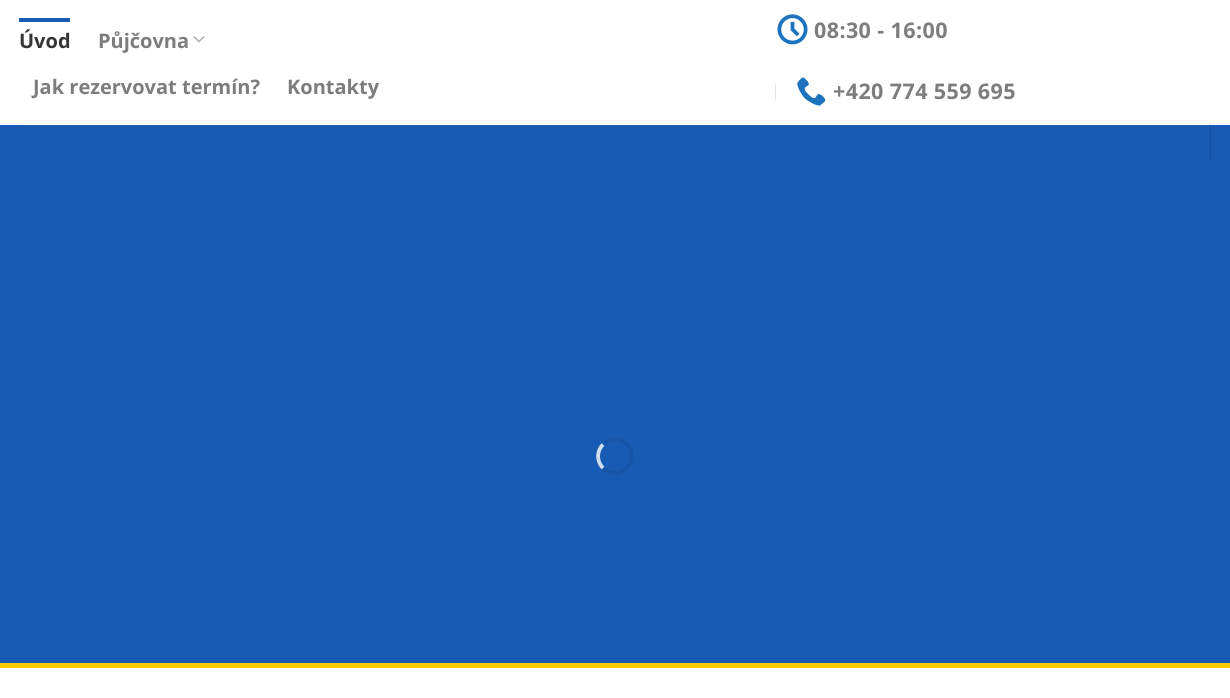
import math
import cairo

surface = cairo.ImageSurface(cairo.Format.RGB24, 1230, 698)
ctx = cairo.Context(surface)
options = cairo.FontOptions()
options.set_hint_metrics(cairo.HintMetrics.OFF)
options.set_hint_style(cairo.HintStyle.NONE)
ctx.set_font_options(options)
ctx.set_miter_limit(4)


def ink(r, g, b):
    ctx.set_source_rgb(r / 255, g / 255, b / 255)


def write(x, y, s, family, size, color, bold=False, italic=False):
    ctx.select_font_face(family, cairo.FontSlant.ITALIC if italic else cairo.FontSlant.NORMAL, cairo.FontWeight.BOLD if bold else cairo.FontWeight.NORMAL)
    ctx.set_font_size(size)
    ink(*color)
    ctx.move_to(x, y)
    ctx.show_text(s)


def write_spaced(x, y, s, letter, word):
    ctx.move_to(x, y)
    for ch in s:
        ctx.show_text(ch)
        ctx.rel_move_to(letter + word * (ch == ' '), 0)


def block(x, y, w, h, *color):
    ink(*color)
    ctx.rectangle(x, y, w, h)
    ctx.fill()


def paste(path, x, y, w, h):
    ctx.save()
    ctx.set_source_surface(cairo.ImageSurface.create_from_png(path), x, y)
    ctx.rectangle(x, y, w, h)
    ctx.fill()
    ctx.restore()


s1 = dict(family="Open Sans", size=20, color=(53, 53, 53), bold=True)
s2 = dict(family="Open Sans", size=20, color=(125, 125, 125), bold=True)

ink(255, 255, 255)
ctx.paint()
block(1210, 123, 1, 2, 230, 230, 230)
block(19, 18, 51, 4, 23, 91, 180)
write(19, 48, "Úvod", **s1)
write(98, 48, "Půjčovna", **s2)
paste("pic1.png", 193, 36, 12, 7)
write(33, 94, "Jak rezervovat termín?", **s2)
write(287, 94, "Kontakty", **s2)
paste("pic2.png", 777, 14, 31, 31)
ctx.set_font_size(21.5)
write_spaced(814, 38, "08:30 - 16:00", 0.4, 0)
block(775, 83, 1, 18, 230, 230, 230)
paste("pic3.png", 797, 77, 29, 29)
ink(125, 125, 125)
write_spaced(833, 99, "+420 774 559 695", 0.4, 0)
block(0, 125, 1230, 538, 23, 91, 180)
block(19, 125, 1192, 1, 33, 94, 174)
block(1210, 125, 1, 35, 21, 82, 162)
block(1210, 125, 1, 1, 31, 86, 158)
ctx.new_path()
ctx.move_to(603, 444.5)
ctx.curve_to(607, 440.5, 613, 438.5, 618.5, 439.5)
ctx.curve_to(638, 443.5, 635, 473, 615, 473)
ctx.curve_to(610.5, 473, 606, 471.5, 603, 468)
ink(21, 84, 166)
ctx.set_line_width(3.8)
ctx.stroke()
ctx.new_path()
ctx.move_to(603, 468)
ctx.curve_to(596.5, 461.5, 596.5, 451, 603, 444.5)
ink(209, 222, 240)
ctx.stroke()
block(0, 663, 1230, 5, 254, 204, 0)
surface.write_to_png("screenshot.png")
